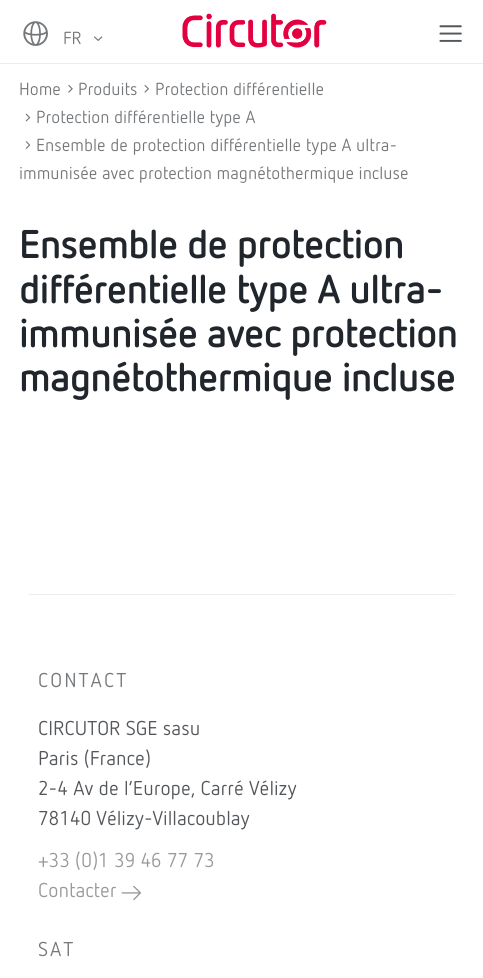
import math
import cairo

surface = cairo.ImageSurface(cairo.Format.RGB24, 483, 978)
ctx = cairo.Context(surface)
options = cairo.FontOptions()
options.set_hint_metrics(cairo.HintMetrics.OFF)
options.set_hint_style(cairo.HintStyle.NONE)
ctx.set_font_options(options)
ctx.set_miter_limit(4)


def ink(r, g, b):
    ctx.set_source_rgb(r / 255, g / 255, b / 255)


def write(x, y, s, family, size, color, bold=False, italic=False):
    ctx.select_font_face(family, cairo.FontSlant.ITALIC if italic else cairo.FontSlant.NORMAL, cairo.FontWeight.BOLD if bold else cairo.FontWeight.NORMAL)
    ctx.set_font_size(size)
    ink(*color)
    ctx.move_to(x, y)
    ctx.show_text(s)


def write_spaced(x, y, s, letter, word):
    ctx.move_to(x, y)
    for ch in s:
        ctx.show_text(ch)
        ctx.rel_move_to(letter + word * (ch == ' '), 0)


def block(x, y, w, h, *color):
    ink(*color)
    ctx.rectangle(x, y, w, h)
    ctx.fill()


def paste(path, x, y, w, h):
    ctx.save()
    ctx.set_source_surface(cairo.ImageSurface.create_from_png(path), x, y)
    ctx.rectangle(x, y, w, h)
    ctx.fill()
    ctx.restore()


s1 = dict(family="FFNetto", size=17.5, color=(117, 120, 123))
s2 = dict(family="FFNetto", size=20, color=(83, 86, 90))
s3 = dict(family="FFNetto", size=20, color=(151, 153, 155))

ink(255, 255, 255)
ctx.paint()
block(0, 63, 483, 1, 236, 236, 236)
paste("pic1.png", 23, 21, 25, 25)
paste("pic2.png", 94, 36, 9, 5)
write(63, 44, "FR", **s1)
paste("pic3.png", 182, 13, 145, 35)
paste("pic4.png", 439, 25, 23, 17)
write(19, 95, "Home", **s1)
paste("pic5.png", 68, 85, 5, 8)
write(78, 95, "Produits", **s1)
paste("pic6.png", 144, 85, 5, 8)
write(155, 95, "Protection différentielle", **s1)
paste("pic7.png", 25, 113, 6, 9)
write(36, 123, "Protection différentielle type A", **s1)
paste("pic8.png", 25, 141, 6, 8)
write(36, 151, "Ensemble de protection différentielle type A ultra-", **s1)
write(19, 179, "immunisée avec protection magnétothermique incluse", **s1)
ctx.select_font_face("FFNetto", cairo.FontSlant.NORMAL, cairo.FontWeight.BOLD)
ctx.set_font_size(40)
ink(32, 38, 44)
write_spaced(19, 258, "Ensemble de protection", -0.8, 0)
write_spaced(19, 303, "différentielle type A ultra-", -0.8, 0)
write_spaced(19, 347, "immunisée avec protection", -0.8, 0)
write_spaced(19, 391, "magnétothermique incluse", -0.8, 0)
block(29, 594, 426, 1, 236, 236, 236)
ctx.select_font_face("FFNetto")
ctx.set_font_size(20)
ink(117, 120, 123)
write_spaced(38, 687, "CONTACT", 2, 0)
write(38, 735, "CIRCUTOR SGE sasu", **s2)
write(38, 765, "Paris (France)", **s2)
write(38, 795, "2-4 Av de l’Europe, Carré Vélizy", **s2)
write(38, 825, "78140 Vélizy-Villacoublay", **s2)
write(38, 867, "+33 (0)1 39 46 77 73", **s3)
write(38, 897, "Contacter", **s3)
paste("pic9.png", 121, 885, 20, 16)
ink(117, 120, 123)
write_spaced(38, 956, "SAT", 2, 0)
surface.write_to_png("screenshot.png")
